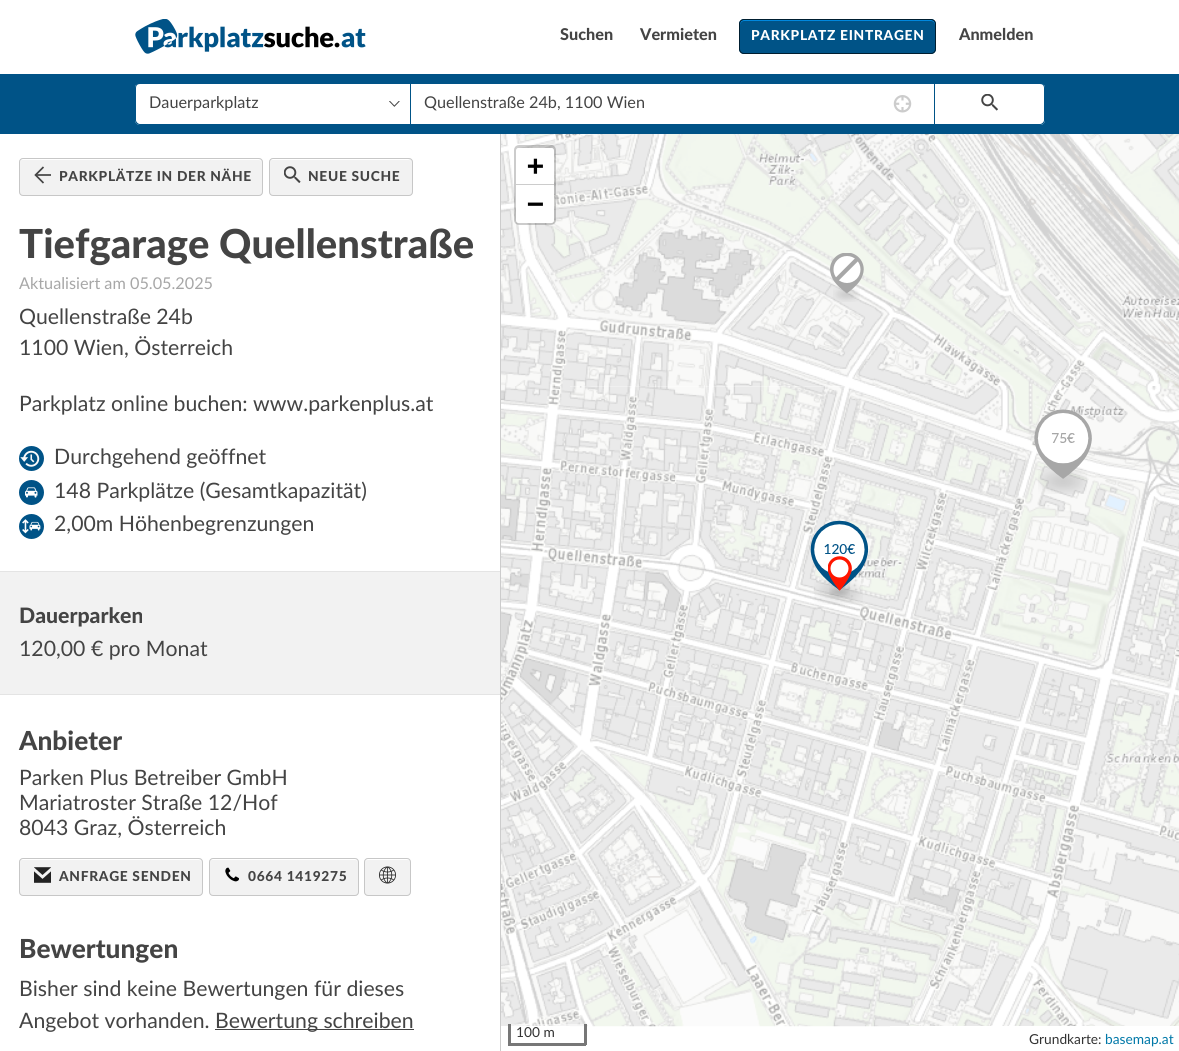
import math
import cairo

surface = cairo.ImageSurface(cairo.Format.RGB24, 1179, 1051)
ctx = cairo.Context(surface)
options = cairo.FontOptions()
options.set_hint_metrics(cairo.HintMetrics.OFF)
options.set_hint_style(cairo.HintStyle.NONE)
ctx.set_font_options(options)
ctx.set_miter_limit(4)


def ink(r, g, b):
    ctx.set_source_rgb(r / 255, g / 255, b / 255)


def write(x, y, s, family, size, color, bold=False, italic=False):
    ctx.select_font_face(family, cairo.FontSlant.ITALIC if italic else cairo.FontSlant.NORMAL, cairo.FontWeight.BOLD if bold else cairo.FontWeight.NORMAL)
    ctx.set_font_size(size)
    ink(*color)
    ctx.move_to(x, y)
    ctx.show_text(s)


def write_spaced(x, y, s, letter, word):
    ctx.move_to(x, y)
    for ch in s:
        ctx.show_text(ch)
        ctx.rel_move_to(letter + word * (ch == ' '), 0)


def block(x, y, w, h, *color):
    ink(*color)
    ctx.rectangle(x, y, w, h)
    ctx.fill()


def round_path(x, y, w, h, r):
    ctx.new_sub_path()
    for i, (u, v) in enumerate([(x + w - r, y + h - r), (x + r, y + h - r), (x + r, y + r), (x + w - r, y + r)]):
        ctx.arc(u, v, r, i * math.pi / 2, (i + 1) * math.pi / 2)
    ctx.close_path()


def paste(path, x, y, w, h):
    ctx.save()
    ctx.set_source_surface(cairo.ImageSurface.create_from_png(path), x, y)
    ctx.rectangle(x, y, w, h)
    ctx.fill()
    ctx.restore()


s1 = dict(family="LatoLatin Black", size=16.25, color=(68, 68, 68))
s2 = dict(family="LatoLatin", size=16.25, color=(68, 68, 68))
s3 = dict(family="LatoLatin Black", size=40, color=(68, 68, 68))
s4 = dict(family="LatoLatin", size=16.25, color=(167, 167, 167))
s5 = dict(family="LatoLatin", size=21.25, color=(68, 68, 68))
s6 = dict(family="LatoLatin Black", size=21.25, color=(68, 68, 68))
s7 = dict(family="LatoLatin Black", size=26.25, color=(68, 68, 68))
s8 = dict(family="DejaVu Sans Mono", size=28, color=(0, 0, 0), bold=True)
s9 = dict(family="LatoLatin", size=13.75, color=(51, 51, 51))
s10 = dict(family="LatoLatin", size=13.75, color=(0, 120, 168))

ink(255, 255, 255)
ctx.paint()
paste("pic1.png", 135, 19, 231, 35)
write(560, 40, "Suchen", **s1)
write(640, 40, "Vermieten", **s1)
ink(0, 83, 135)
round_path(739, 19, 197, 35, 5)
ctx.fill()
ink(0, 136, 222)
ctx.new_path()
ctx.move_to(744, 21)
ctx.line_to(931, 21)
ctx.curve_to(933, 21, 935, 23, 935, 25)
ctx.line_to(935, 24)
ctx.curve_to(935, 22, 933, 20, 931, 20)
ctx.line_to(744, 20)
ctx.curve_to(742, 20, 740, 22, 740, 24)
ctx.line_to(740, 25)
ctx.curve_to(740, 23, 742, 21, 744, 21)
ctx.close_path()
ctx.fill()
round_path(739.5, 19.5, 196, 34, 4.5)
ink(0, 30, 48)
ctx.set_line_width(1)
ctx.stroke()
ctx.set_font_size(13.75)
ink(255, 255, 255)
write_spaced(751, 40, "PARKPLATZ EINTRAGEN", 0.7, 0)
write(959, 40, "Anmelden", **s1)
block(500, 133, 1, 918, 204, 204, 204)
block(0, 74, 1179, 60, 0, 83, 135)
ink(255, 255, 255)
ctx.new_path()
ctx.move_to(140, 83)
ctx.line_to(410, 83)
ctx.line_to(410, 125)
ctx.line_to(140, 125)
ctx.curve_to(137, 125, 135, 123, 135, 120)
ctx.line_to(135, 88)
ctx.curve_to(135, 85, 137, 83, 140, 83)
ctx.close_path()
ctx.fill()
ink(0, 83, 135)
ctx.set_fill_rule(cairo.FillRule.EVEN_ODD)
ctx.new_path()
ctx.move_to(140, 82)
ctx.line_to(410, 82)
ctx.line_to(410, 125)
ctx.line_to(140, 125)
ctx.curve_to(137, 125, 135, 123, 135, 120)
ctx.line_to(135, 88)
ctx.curve_to(135, 85, 137, 82, 140, 82)
ctx.close_path()
ctx.move_to(140, 84)
ctx.line_to(410, 84)
ctx.line_to(410, 124)
ctx.line_to(140, 124)
ctx.curve_to(138, 124, 136, 122, 136, 120)
ctx.line_to(136, 88)
ctx.curve_to(136, 85, 138, 84, 140, 84)
ctx.close_path()
ctx.fill()
write(149, 108, "Dauerparkplatz", **s2)
paste("pic2.png", 389, 101, 11, 6)
block(411, 84, 523, 40, 255, 255, 255)
write(424, 108, "Quellenstraße 24b, 1100 Wien", **s2)
paste("pic3.png", 893, 95, 19, 18)
ink(255, 255, 255)
ctx.new_path()
ctx.move_to(935, 83)
ctx.line_to(1040, 83)
ctx.curve_to(1043, 83, 1045, 85, 1045, 88)
ctx.line_to(1045, 120)
ctx.curve_to(1045, 123, 1043, 125, 1040, 125)
ctx.line_to(935, 125)
ctx.close_path()
ctx.fill()
ink(0, 83, 135)
ctx.new_path()
ctx.move_to(935, 82)
ctx.line_to(1040, 82)
ctx.curve_to(1043, 82, 1045, 85, 1045, 88)
ctx.line_to(1045, 120)
ctx.curve_to(1045, 123, 1043, 125, 1040, 125)
ctx.line_to(935, 125)
ctx.close_path()
ctx.move_to(935, 84)
ctx.line_to(1040, 84)
ctx.curve_to(1042, 84, 1044, 85, 1044, 88)
ctx.line_to(1044, 120)
ctx.curve_to(1044, 122, 1042, 124, 1040, 124)
ctx.line_to(935, 124)
ctx.close_path()
ctx.fill()
paste("pic4.png", 981, 94, 17, 17)
ink(242, 242, 242)
round_path(19, 158, 244, 38, 4)
ctx.fill()
ink(255, 255, 255)
ctx.set_fill_rule(cairo.FillRule.WINDING)
ctx.new_path()
ctx.move_to(22, 160)
ctx.line_to(259, 160)
ctx.curve_to(260, 160, 261, 161, 261, 162)
ctx.curve_to(261, 160, 260, 159, 258, 159)
ctx.line_to(22, 159)
ctx.line_to(20, 160)
ctx.line_to(20, 162)
ctx.curve_to(20, 161, 21, 160, 22, 160)
ctx.close_path()
ctx.fill()
round_path(19.5, 158.5, 243, 37, 3.5)
ink(199, 199, 199)
ctx.stroke()
ctx.new_path()
ctx.move_to(43.5, 167)
ctx.line_to(35.5, 175)
ctx.line_to(43.5, 183)
ink(68, 68, 68)
ctx.set_line_width(1.7)
ctx.stroke()
ctx.set_source_rgba(0.267, 0.267, 0.267, 0.85)
ctx.rectangle(36, 174, 15, 2)
ctx.fill()
ctx.select_font_face("LatoLatin Black")
ctx.set_font_size(13.75)
ink(68, 68, 68)
write_spaced(59, 181, "PARKPLÄTZE IN DER NÄHE", 0.7, 0)
ink(242, 242, 242)
round_path(269, 158, 144, 38, 4)
ctx.fill()
ink(255, 255, 255)
ctx.new_path()
ctx.move_to(272, 160)
ctx.line_to(409, 160)
ctx.curve_to(410, 160, 411, 161, 411, 162)
ctx.line_to(410, 160)
ctx.line_to(408, 159)
ctx.line_to(295, 159)
ctx.curve_to(292, 159, 270, 154, 270, 162)
ctx.curve_to(270, 161, 271, 160, 272, 160)
ctx.close_path()
ctx.fill()
round_path(269.5, 158.5, 143, 37, 3.5)
ink(199, 199, 199)
ctx.set_line_width(1)
ctx.stroke()
paste("pic5.png", 284, 166, 17, 17)
ink(68, 68, 68)
write_spaced(308, 181, "NEUE SUCHE", 0.7, 0)
write(19, 258, "Tiefgarage Quellenstraße", **s3)
write(19, 289, "Aktualisiert am 05.05.2025", **s4)
write(19, 324, "Quellenstraße 24b", **s5)
write(19, 355, "1100 Wien, Österreich", **s5)
write(19, 411, "Parkplatz online buchen: www.parkenplus.at", **s5)
ink(0, 83, 135)
ctx.new_path()
ctx.arc(31.5, 458.5, 12.5, 0, 2 * math.pi)
ctx.fill()
paste("pic6.png", 20, 450, 20, 17)
write(54, 464, "Durchgehend geöffnet", **s5)
ink(0, 83, 135)
ctx.new_path()
ctx.arc(31.5, 492.5, 12.5, 0, 2 * math.pi)
ctx.fill()
paste("pic7.png", 25, 487, 13, 11)
write(54, 498, "148 Parkplätze (Gesamtkapazität)", **s5)
ink(0, 83, 135)
ctx.new_path()
ctx.arc(31.5, 526.5, 12.5, 0, 2 * math.pi)
ctx.fill()
paste("pic8.png", 22, 519, 19, 15)
write(54, 531, "2,00m Höhenbegrenzungen", **s5)
block(0, 572, 500, 122, 242, 242, 242)
block(0, 571, 500, 1, 228, 228, 228)
block(0, 694, 500, 1, 228, 228, 228)
write(19, 623, "Dauerparken", **s6)
write(19, 656, "120,00 € pro Monat", **s5)
write(19, 750, "Anbieter", **s7)
write(19, 785, "Parken Plus Betreiber GmbH", **s5)
write(19, 810, "Mariatroster Straße 12/Hof", **s5)
write(19, 835, "8043 Graz, Österreich", **s5)
ink(242, 242, 242)
round_path(19, 858, 184, 38, 4)
ctx.fill()
ink(255, 255, 255)
ctx.new_path()
ctx.move_to(22, 860)
ctx.line_to(199, 860)
ctx.curve_to(200, 860, 201, 861, 201, 862)
ctx.curve_to(201, 860, 200, 859, 198, 859)
ctx.line_to(22, 859)
ctx.line_to(21, 860)
ctx.line_to(20, 862)
ctx.curve_to(20, 861, 21, 860, 22, 860)
ctx.close_path()
ctx.fill()
round_path(19.5, 858.5, 183, 37, 3.5)
ink(199, 199, 199)
ctx.stroke()
paste("pic9.png", 34, 867, 17, 16)
ctx.select_font_face("LatoLatin Black")
ctx.set_font_size(13.75)
ink(68, 68, 68)
write_spaced(59, 881, "ANFRAGE SENDEN", 0.7, 0)
ink(242, 242, 242)
round_path(209, 858, 150, 38, 4)
ctx.fill()
ink(255, 255, 255)
ctx.new_path()
ctx.move_to(212, 860)
ctx.line_to(355, 860)
ctx.curve_to(356, 860, 358, 861, 358, 862)
ctx.line_to(357, 860)
ctx.line_to(356, 859)
ctx.line_to(236, 859)
ctx.curve_to(235, 859, 210, 854, 210, 862)
ctx.curve_to(210, 861, 211, 860, 212, 860)
ctx.close_path()
ctx.fill()
round_path(209.5, 858.5, 149, 37, 3.5)
ink(199, 199, 199)
ctx.stroke()
paste("pic10.png", 225, 867, 14, 15)
ink(68, 68, 68)
write_spaced(248, 881, "0664 1419275", 0.7, 0)
ink(242, 242, 242)
round_path(364, 858, 47, 38, 4)
ctx.fill()
ink(255, 255, 255)
ctx.new_path()
ctx.move_to(368, 860)
ctx.line_to(408, 860)
ctx.curve_to(409, 860, 410, 861, 410, 862)
ctx.curve_to(410, 857, 404, 859, 401, 859)
ctx.line_to(374, 859)
ctx.curve_to(371, 859, 365, 857, 365, 862)
ctx.curve_to(365, 861, 366, 860, 368, 860)
ctx.close_path()
ctx.fill()
round_path(364.5, 858.5, 46, 37, 3.5)
ink(199, 199, 199)
ctx.stroke()
paste("pic11.png", 379, 866, 17, 18)
write(19, 958, "Bewertungen", **s7)
write(19, 996, "Bisher sind keine Bewertungen für dieses", **s5)
write(19, 1028, "Angebot vorhanden.", **s5)
block(215, 1029, 199, 1, 68, 68, 68)
write(215, 1028, "Bewertung schreiben", **s5)
paste("pic12.png", 501, 134, 69, 252)
paste("pic13.png", 570, 134, 320, 252)
paste("pic14.png", 890, 134, 289, 252)
paste("pic15.png", 501, 386, 69, 320)
paste("pic16.png", 570, 386, 320, 321)
paste("pic17.png", 890, 386, 289, 320)
paste("pic18.png", 501, 706, 69, 320)
paste("pic19.png", 570, 706, 320, 321)
paste("pic20.png", 890, 706, 289, 320)
paste("pic25.png", 833, 287, 27, 15)
paste("pic21.png", 830, 253, 34, 40)
paste("pic26.png", 1038, 469, 49, 25)
paste("pic22.png", 1034, 409, 58, 70)
paste("pic28.png", 829, 586, 21, 12)
paste("pic27.png", 814, 580, 49, 25)
paste("pic23.png", 810, 520, 59, 70)
paste("pic24.png", 828, 556, 24, 35)
round_path(515.5, 146.5, 39, 77, 3.5)
ctx.set_source_rgba(0, 0, 0, 0.2)
ctx.set_line_width(3)
ctx.stroke()
ink(255, 255, 255)
ctx.new_path()
ctx.move_to(518.5, 148)
ctx.line_to(551.5, 148)
ctx.curve_to(553, 148, 554, 149, 554, 150.5)
ctx.line_to(554, 185)
ctx.line_to(516, 185)
ctx.line_to(516, 150.5)
ctx.curve_to(516, 149, 517, 148, 518.5, 148)
ctx.close_path()
ctx.fill()
block(516, 184, 38, 1, 204, 204, 204)
write(527, 175, "+", **s8)
ink(255, 255, 255)
ctx.new_path()
ctx.move_to(516, 185)
ctx.line_to(554, 185)
ctx.line_to(554, 220.5)
ctx.curve_to(554, 222, 553, 223, 551.5, 223)
ctx.line_to(518.5, 223)
ctx.curve_to(517, 223, 516, 222, 516, 220.5)
ctx.close_path()
ctx.fill()
write(527, 213, "−", **s8)
ctx.set_source_rgba(1, 1, 1, 0.5)
ctx.rectangle(511, 1024, 73, 3)
ctx.fill()
block(584, 1024, 3, 21, 119, 119, 119)
block(508, 1043, 78, 3, 119, 119, 119)
block(508, 1024, 3, 21, 119, 119, 119)
write(516, 1037, "100 m", **s9)
write(1029, 1044, "Grundkarte:", **s9)
write(1105, 1044, "basemap.at", **s10)
surface.write_to_png("screenshot.png")
